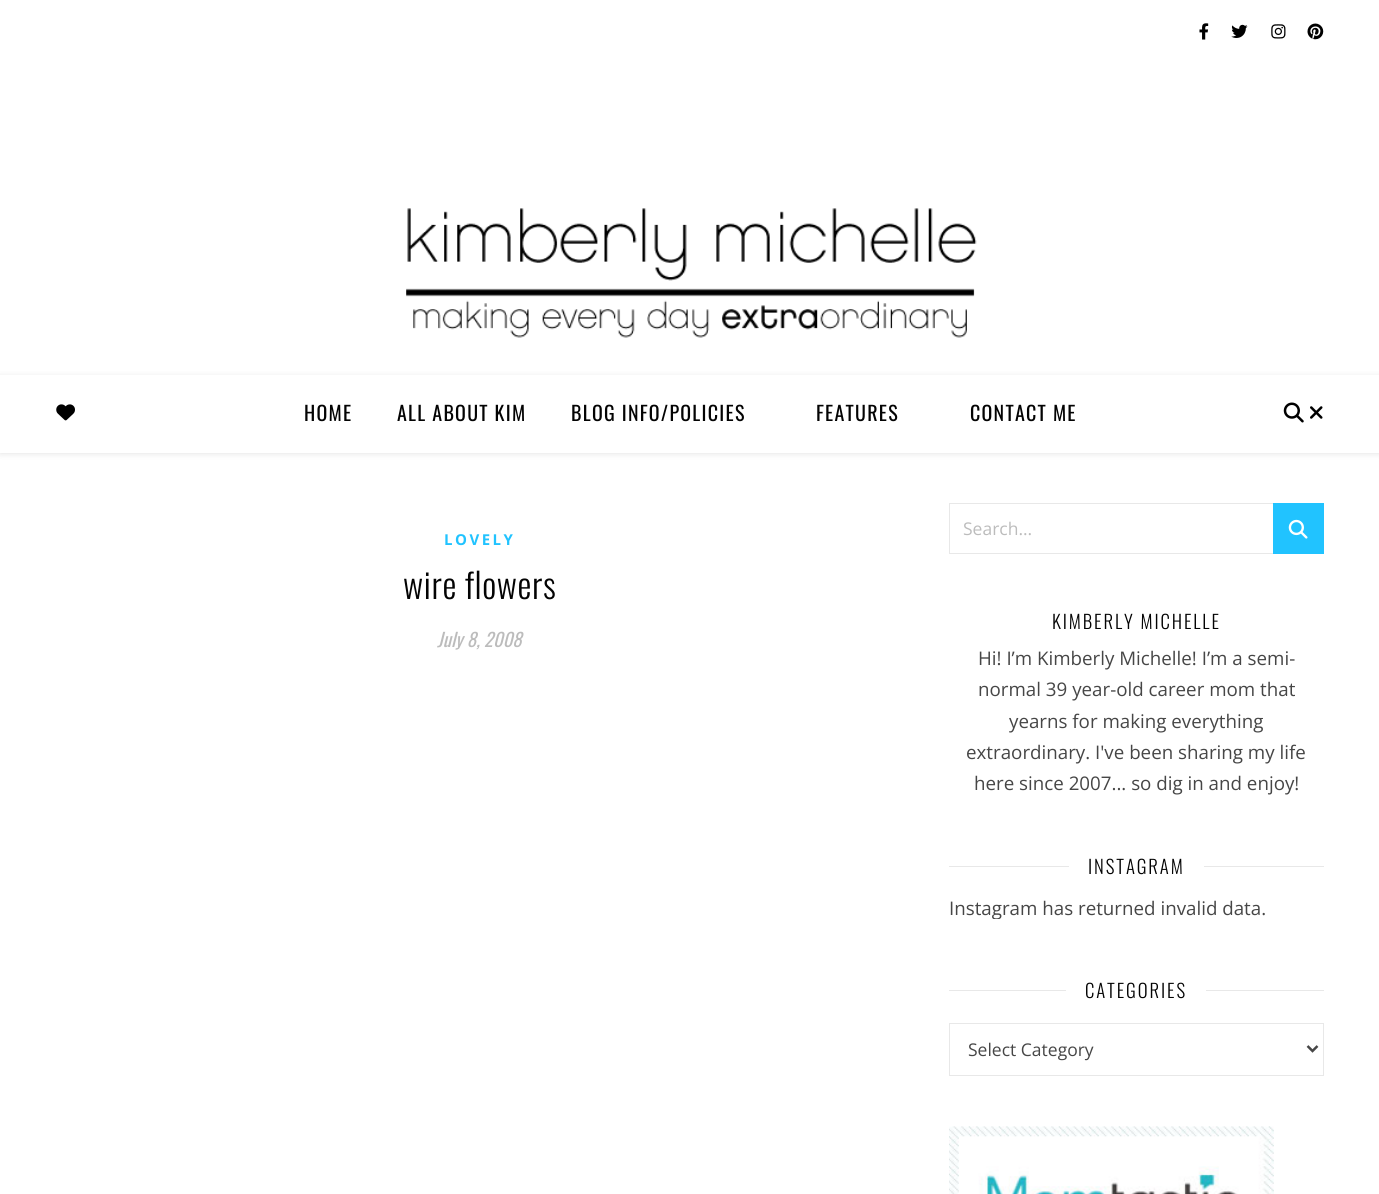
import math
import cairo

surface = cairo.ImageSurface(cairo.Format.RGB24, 1379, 1194)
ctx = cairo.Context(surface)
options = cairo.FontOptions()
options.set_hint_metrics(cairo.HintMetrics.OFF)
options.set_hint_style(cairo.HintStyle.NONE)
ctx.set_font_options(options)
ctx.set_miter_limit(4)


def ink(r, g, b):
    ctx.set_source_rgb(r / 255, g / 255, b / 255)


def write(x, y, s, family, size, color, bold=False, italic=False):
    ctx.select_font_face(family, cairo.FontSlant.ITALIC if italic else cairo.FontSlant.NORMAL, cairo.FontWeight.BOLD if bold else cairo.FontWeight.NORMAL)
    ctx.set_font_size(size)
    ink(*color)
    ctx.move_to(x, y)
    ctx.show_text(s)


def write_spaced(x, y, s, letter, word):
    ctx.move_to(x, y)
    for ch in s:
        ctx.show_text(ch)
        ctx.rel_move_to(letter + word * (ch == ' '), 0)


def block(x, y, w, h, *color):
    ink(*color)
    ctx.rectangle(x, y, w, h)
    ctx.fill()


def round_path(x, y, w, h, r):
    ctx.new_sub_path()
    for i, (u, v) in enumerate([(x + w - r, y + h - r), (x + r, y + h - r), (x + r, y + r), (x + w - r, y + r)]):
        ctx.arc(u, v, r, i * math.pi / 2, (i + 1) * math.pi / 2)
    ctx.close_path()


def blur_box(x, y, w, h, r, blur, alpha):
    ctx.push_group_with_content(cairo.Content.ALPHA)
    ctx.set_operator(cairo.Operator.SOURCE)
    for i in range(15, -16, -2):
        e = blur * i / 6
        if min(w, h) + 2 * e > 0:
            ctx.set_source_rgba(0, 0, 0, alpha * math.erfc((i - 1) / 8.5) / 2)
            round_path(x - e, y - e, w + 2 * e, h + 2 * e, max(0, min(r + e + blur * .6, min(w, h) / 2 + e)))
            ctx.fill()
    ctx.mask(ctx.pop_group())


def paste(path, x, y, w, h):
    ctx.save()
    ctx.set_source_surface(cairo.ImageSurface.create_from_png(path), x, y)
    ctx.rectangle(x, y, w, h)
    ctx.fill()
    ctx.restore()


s1 = dict(family="Oswald", size=18.75, color=(188, 188, 188), italic=True)
s2 = dict(family="Open Sans", size=17.5, color=(188, 188, 188))
s3 = dict(family="Open Sans", size=18.75, color=(70, 70, 70))
s4 = dict(family="Open Sans", size=17.5, color=(70, 70, 70))

ink(255, 255, 255)
ctx.paint()
paste("pic1.png", 1199, 23, 10, 17)
paste("pic2.png", 1231, 24, 17, 14)
paste("pic3.png", 1271, 24, 15, 15)
paste("pic4.png", 1307, 23, 17, 17)
paste("pic5.png", 406, 208, 571, 130)
ink(0, 0, 0)
blur_box(0, 376, 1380, 78, 0, 3, 0.1)
block(0, 375, 1379, 78, 255, 255, 255)
paste("pic6.png", 56, 404, 19, 17)
ctx.select_font_face("Oswald")
ctx.set_font_size(20)
ink(3, 3, 3)
write_spaced(304, 421, "HOME", 1.25, 0)
write_spaced(397, 421, "ALL ABOUT KIM", 1.25, 0)
write_spaced(571, 421, "BLOG INFO/POLICIES", 1.25, 0)
write_spaced(816, 421, "FEATURES", 1.25, 0)
write_spaced(970, 421, "CONTACT ME", 1.25, 0)
paste("pic7.png", 1283, 402, 21, 21)
paste("pic8.png", 1310, 406, 13, 13)
ctx.select_font_face("Open Sans", cairo.FontSlant.NORMAL, cairo.FontWeight.BOLD)
ctx.set_font_size(15)
ink(33, 195, 255)
write_spaced(444, 545, "LOVELY", 2.5, 0)
ctx.select_font_face("Oswald Light")
ctx.set_font_size(35)
ink(3, 3, 3)
write_spaced(403, 599, "wire flowers", 0.6, 0)
write(437, 647, "July 8, 2008", **s1)
ctx.rectangle(949.5, 503.5, 374, 50)
ink(232, 232, 232)
ctx.set_line_width(1)
ctx.stroke()
write(963, 535, "Search...", **s2)
block(1273, 503, 51, 51, 33, 195, 255)
paste("pic9.png", 1288, 519, 20, 20)
ctx.select_font_face("Oswald Light")
ctx.set_font_size(18.75)
ink(3, 3, 3)
write_spaced(1052, 629, "KIMBERLY MICHELLE", 1.9, 0)
write(978, 665, "Hi! I’m Kimberly Michelle! I’m a semi-", **s3)
write(978, 696, "normal 39 year-old career mom that", **s3)
write(1009, 728, "yearns for making everything", **s3)
write(966, 759, "extraordinary. I've been sharing my life", **s3)
write(974, 790, "here since 2007... so dig in and enjoy!", **s3)
block(949, 866, 120, 1, 232, 232, 232)
ctx.select_font_face("Oswald Light")
ink(3, 3, 3)
write_spaced(1088, 874, "INSTAGRAM", 1.9, 0)
block(1204, 866, 120, 1, 232, 232, 232)
ctx.save()
ctx.rectangle(949, 849, 375, 70)
ctx.clip()
write(949, 915, "Instagram has returned invalid data.", **s3)
ctx.restore()
block(949, 990, 117, 1, 232, 232, 232)
ink(3, 3, 3)
write_spaced(1085, 998, "CATEGORIES", 1.9, 0)
block(1206, 990, 118, 1, 232, 232, 232)
ctx.rectangle(949.5, 1023.5, 374, 52)
ctx.stroke()
ctx.new_path()
ctx.move_to(1307.5, 1046)
ctx.line_to(1312.5, 1051)
ctx.line_to(1317.5, 1046)
ink(70, 70, 70)
ctx.set_line_width(2.5)
ctx.stroke()
write(968, 1056, "Select Category", **s4)
paste("pic10.png", 949, 1126, 325, 68)
surface.write_to_png("screenshot.png")
